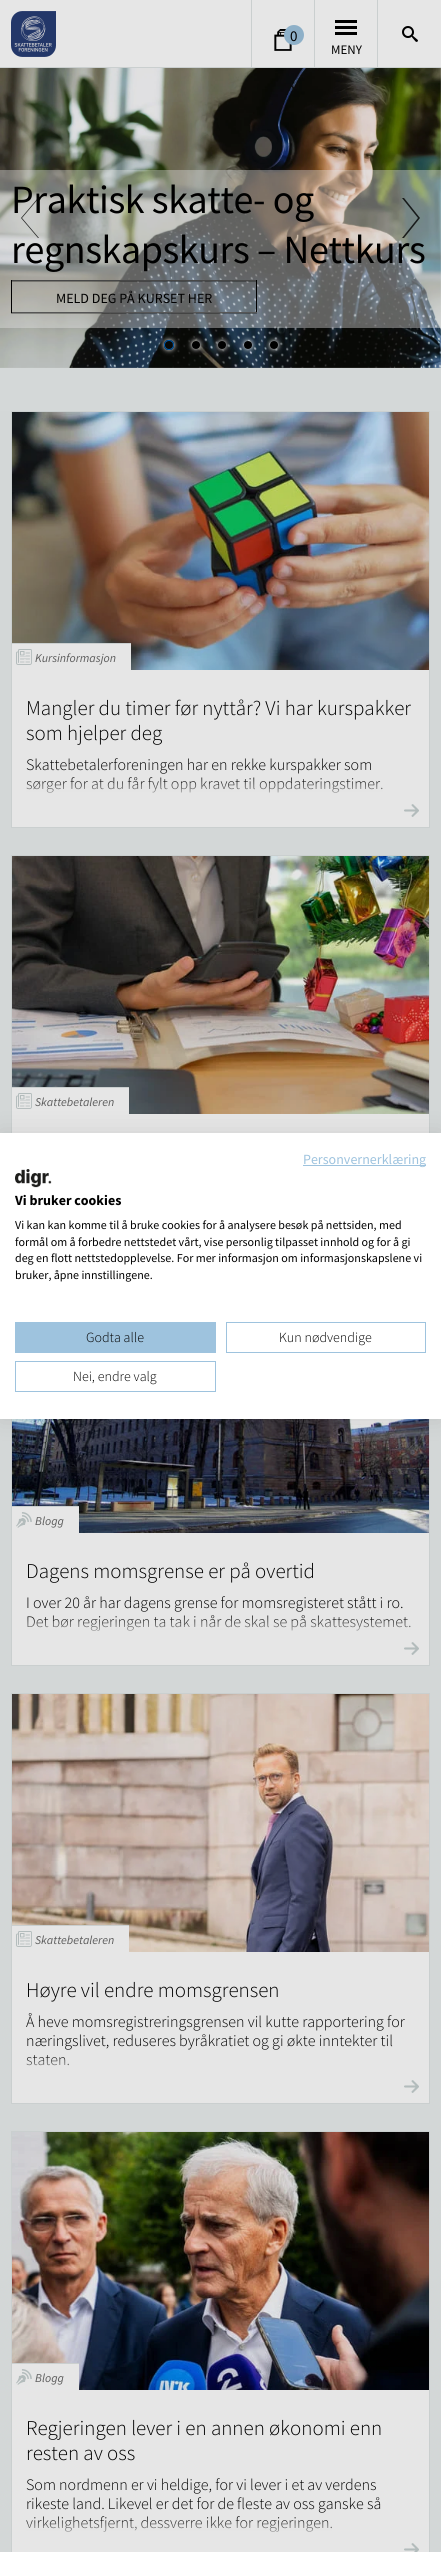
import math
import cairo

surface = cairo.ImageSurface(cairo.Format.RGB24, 441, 2552)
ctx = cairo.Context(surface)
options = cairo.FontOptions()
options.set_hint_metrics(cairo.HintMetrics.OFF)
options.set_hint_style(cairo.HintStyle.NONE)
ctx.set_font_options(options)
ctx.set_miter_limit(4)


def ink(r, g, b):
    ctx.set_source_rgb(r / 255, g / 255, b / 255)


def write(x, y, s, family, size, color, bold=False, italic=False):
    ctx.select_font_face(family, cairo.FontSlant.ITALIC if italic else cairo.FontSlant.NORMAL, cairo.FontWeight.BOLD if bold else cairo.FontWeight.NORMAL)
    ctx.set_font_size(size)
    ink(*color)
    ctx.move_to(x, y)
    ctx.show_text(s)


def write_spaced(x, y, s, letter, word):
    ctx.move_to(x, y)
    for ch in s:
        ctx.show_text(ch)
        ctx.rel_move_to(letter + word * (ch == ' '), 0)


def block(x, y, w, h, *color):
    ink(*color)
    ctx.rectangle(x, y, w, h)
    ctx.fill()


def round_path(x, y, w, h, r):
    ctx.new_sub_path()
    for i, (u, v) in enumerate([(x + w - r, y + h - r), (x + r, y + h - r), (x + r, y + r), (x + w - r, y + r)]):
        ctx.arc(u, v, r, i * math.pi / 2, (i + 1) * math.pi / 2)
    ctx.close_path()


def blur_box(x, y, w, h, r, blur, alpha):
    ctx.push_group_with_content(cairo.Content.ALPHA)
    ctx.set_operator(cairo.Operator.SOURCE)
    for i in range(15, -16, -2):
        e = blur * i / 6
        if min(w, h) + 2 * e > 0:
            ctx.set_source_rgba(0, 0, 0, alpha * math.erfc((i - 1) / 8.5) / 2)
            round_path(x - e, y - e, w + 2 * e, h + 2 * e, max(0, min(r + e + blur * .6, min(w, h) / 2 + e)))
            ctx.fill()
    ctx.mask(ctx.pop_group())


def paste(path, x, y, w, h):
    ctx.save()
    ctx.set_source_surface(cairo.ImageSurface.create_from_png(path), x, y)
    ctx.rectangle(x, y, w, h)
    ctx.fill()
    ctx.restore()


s1 = dict(family="Source Sans Pro", size=15, color=(0, 0, 0))
s2 = dict(family="Source Sans Pro", size=13, color=(0, 0, 0))
s3 = dict(family="Source Sans Pro", size=14, color=(0, 0, 0))
s4 = dict(family="Source Sans Pro", size=12, color=(92, 92, 92), italic=True)
s5 = dict(family="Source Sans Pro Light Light", size=21, color=(0, 0, 0))
s6 = dict(family="Source Sans Pro Light Light", size=16, color=(0, 0, 0))
s7 = dict(family="Source Sans Pro", size=14, color=(158, 195, 222))
s8 = dict(family="Source Sans Pro", size=14, color=(0, 0, 0), bold=True)
s9 = dict(family="Source Sans Pro", size=12, color=(0, 0, 0))
s10 = dict(family="Source Sans Pro Light Light", size=14, color=(0, 0, 0))

ink(230, 230, 230)
ctx.paint()
block(0, 67, 441, 1, 202, 207, 207)
paste("pic1.png", 11, 11, 45, 46)
block(251, 0, 1, 68, 202, 207, 207)
block(314, 0, 1, 68, 202, 207, 207)
paste("pic2.png", 274, 29, 18, 22)
ink(142, 176, 200)
ctx.arc(294, 35, 10, 0, 2 * math.pi)
ctx.fill()
write(290, 41, "0", **s1)
paste("pic3.png", 402, 26, 16, 16)
block(377, 0, 1, 68, 202, 207, 207)
block(335, 26, 22, 3, 0, 0, 0)
block(335, 20, 22, 3, 0, 0, 0)
block(335, 32, 22, 3, 0, 0, 0)
write(331, 54, "MENY", **s2)
block(0, 68, 441, 343, 212, 216, 216)
paste("pic4.png", 0, 68, 441, 300)
ctx.set_source_rgba(0.902, 0.902, 0.902, 0.4)
ctx.rectangle(0, 170, 441, 158)
ctx.fill()
ctx.set_font_size(40)
ink(0, 0, 0)
write_spaced(11, 213, "Praktisk skatte- og", -0.4, 0)
write_spaced(11, 263, "regnskapskurs – Nettkurs", -0.4, 0)
ctx.set_source_rgba(0, 0, 0, 0.3)
ctx.rectangle(11, 313, 246, 1)
ctx.fill()
ctx.rectangle(12, 281, 244, 1)
ctx.fill()
block(11, 280, 246, 1, 71, 71, 71)
block(256, 280, 1, 33, 0, 0, 0)
block(11, 312, 246, 1, 86, 86, 86)
block(11, 280, 1, 33, 0, 0, 0)
write(56, 303, "MELD DEG PÅ KURSET HER", **s3)
ctx.set_source_rgba(0, 0, 0, 0.8)
ctx.new_path()
ctx.move_to(39, 238)
ctx.line_to(22, 218)
ctx.line_to(39, 198)
ctx.line_to(38, 198)
ctx.line_to(21, 218)
ctx.line_to(38, 238)
ctx.close_path()
ctx.fill()
ctx.new_path()
ctx.move_to(402, 238)
ctx.line_to(418, 218)
ctx.line_to(402, 198)
ctx.line_to(404, 198)
ctx.line_to(420, 218)
ctx.line_to(404, 238)
ctx.close_path()
ctx.fill()
ctx.save()
ctx.set_fill_rule(cairo.FillRule.EVEN_ODD)
ctx.new_path()
ctx.move_to(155, 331)
ctx.line_to(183, 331)
ctx.line_to(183, 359)
ctx.line_to(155, 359)
ctx.close_path()
ctx.move_to(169, 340)
ctx.curve_to(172, 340, 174, 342, 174, 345)
ctx.curve_to(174, 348, 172, 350, 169, 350)
ctx.curve_to(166, 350, 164, 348, 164, 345)
ctx.curve_to(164, 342, 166, 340, 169, 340)
ctx.close_path()
ctx.clip()
ink(230, 230, 230)
blur_box(164, 340, 10, 10, 5, 2.5, 1)
ctx.restore()
ctx.arc(169, 345, 4.5, 0, 2 * math.pi)
ink(0, 93, 177)
ctx.set_line_width(1)
ctx.stroke()
ink(230, 230, 230)
blur_box(192, 341, 8, 8, 4, 2.5, 1)
ink(0, 0, 0)
ctx.arc(196, 345, 4, 0, 2 * math.pi)
ctx.fill()
ink(230, 230, 230)
blur_box(218, 341, 8, 8, 4, 2.5, 1)
ink(0, 0, 0)
ctx.arc(222, 345, 4, 0, 2 * math.pi)
ctx.fill()
ink(230, 230, 230)
blur_box(244, 341, 8, 8, 4, 2.5, 1)
ink(0, 0, 0)
ctx.arc(248, 345, 4, 0, 2 * math.pi)
ctx.fill()
ink(230, 230, 230)
blur_box(270, 341, 8, 8, 4, 2.5, 1)
ink(0, 0, 0)
ctx.arc(274, 345, 4, 0, 2 * math.pi)
ctx.fill()
block(0, 411, 441, 2141, 211, 215, 215)
block(12, 670, 417, 157, 230, 230, 230)
ctx.rectangle(11.5, 411.5, 418, 416)
ink(202, 207, 207)
ctx.stroke()
paste("pic5.png", 12, 412, 417, 258)
block(12, 644, 119, 26, 230, 230, 230)
block(12, 643, 119, 1, 202, 207, 207)
paste("pic6.png", 16, 649, 16, 16)
write(35, 662, "Kursinformasjon", **s4)
write(26, 715, "Mangler du timer før nyttår? Vi har kurspakker", **s5)
write(26, 740, "som hjelper deg", **s5)
write(26, 770, "Skattebetalerforeningen har en rekke kurspakker som", **s6)
write(26, 789, "sørger for at du får fylt opp kravet til oppdateringstimer.", **s6)
paste("pic7.png", 26, 778, 357, 15)
paste("pic8.png", 404, 804, 15, 13)
block(12, 1114, 417, 19, 230, 230, 230)
ctx.rectangle(11.5, 855.5, 418, 391)
ink(202, 207, 207)
ctx.stroke()
paste("pic9.png", 12, 856, 417, 258)
block(12, 1088, 117, 26, 230, 230, 230)
block(12, 1087, 117, 1, 202, 207, 207)
paste("pic6.png", 16, 1093, 16, 16)
write(35, 1106, "Skattebetaleren", **s4)
block(12, 1533, 417, 132, 230, 230, 230)
ctx.rectangle(11.5, 1274.5, 418, 391)
ink(202, 207, 207)
ctx.stroke()
paste("pic10.png", 12, 1419, 417, 114)
block(12, 1507, 67, 26, 230, 230, 230)
block(12, 1506, 67, 1, 202, 207, 207)
paste("pic11.png", 16, 1512, 16, 16)
write(35, 1525, "Blogg", **s4)
write(26, 1578, "Dagens momsgrense er på overtid", **s5)
write(26, 1608, "I over 20 år har dagens grense for momsregisteret stått i ro.", **s6)
write(26, 1627, "Det bør regjeringen ta tak i når de skal se på skattesystemet.", **s6)
paste("pic12.png", 27, 1616, 384, 15)
paste("pic8.png", 404, 1642, 15, 13)
block(12, 1952, 417, 151, 230, 230, 230)
ctx.rectangle(11.5, 1693.5, 418, 410)
ink(202, 207, 207)
ctx.stroke()
paste("pic13.png", 12, 1694, 417, 258)
block(12, 1926, 117, 26, 230, 230, 230)
block(12, 1925, 117, 1, 202, 207, 207)
paste("pic6.png", 16, 1931, 16, 16)
write(35, 1944, "Skattebetaleren", **s4)
write(26, 1997, "Høyre vil endre momsgrensen", **s5)
write(26, 2027, "Å heve momsregistreringsgrensen vil kutte rapportering for", **s6)
write(26, 2046, "næringslivet, reduseres byråkratiet og gi økte inntekter til", **s6)
write(26, 2065, "staten.", **s6)
paste("pic14.png", 26, 2055, 43, 11)
paste("pic8.png", 404, 2080, 15, 13)
block(12, 2390, 417, 162, 230, 230, 230)
ctx.rectangle(11.5, 2131.5, 418, 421)
ink(202, 207, 207)
ctx.stroke()
paste("pic15.png", 12, 2132, 417, 258)
block(12, 2364, 67, 26, 230, 230, 230)
block(12, 2363, 67, 1, 202, 207, 207)
paste("pic11.png", 16, 2369, 16, 16)
write(35, 2382, "Blogg", **s4)
write(26, 2435, "Regjeringen lever i en annen økonomi enn", **s5)
write(26, 2460, "resten av oss", **s5)
write(26, 2490, "Som nordmenn er vi heldige, for vi lever i et av verdens", **s6)
write(26, 2509, "rikeste land. Likevel er det for de fleste av oss ganske så", **s6)
write(26, 2528, "virkelighetsfjernt, dessverre ikke for regjeringen.", **s6)
paste("pic16.png", 26, 2517, 306, 15)
paste("pic17.png", 404, 2543, 15, 9)
ink(0, 0, 0)
blur_box(0, 1133, 441, 286, 0, 12, 0.1)
block(0, 1133, 441, 286, 255, 255, 255)
block(303, 1165, 123, 1, 158, 195, 222)
write(303, 1164, "Personvernerklæring", **s7)
paste("pic18.png", 15, 1169, 37, 19)
write(15, 1205, "Vi bruker cookies", **s8)
write(15, 1229, "Vi kan kan komme til å bruke cookies for å analysere besøk på nettsiden, med", **s9)
write(15, 1246, "formål om å forbedre nettstedet vårt, vise personlig tilpasset innhold og for å gi", **s9)
write(15, 1262, "deg en flott nettstedopplevelse. For mer informasjon om informasjonskapslene vi", **s9)
write(15, 1279, "bruker, åpne innstillingene.", **s9)
block(15, 1322, 201, 31, 158, 195, 222)
write(86, 1342, "Godta alle", **s10)
ctx.rectangle(226.5, 1322.5, 199, 30)
ink(158, 195, 222)
ctx.stroke()
write(279, 1342, "Kun nødvendige", **s10)
ctx.rectangle(15.5, 1361.5, 200, 30)
ink(158, 195, 222)
ctx.stroke()
write(73, 1381, "Nei, endre valg", **s10)
surface.write_to_png("screenshot.png")
